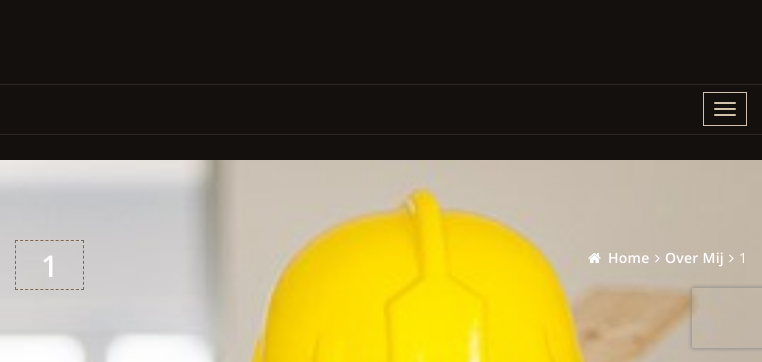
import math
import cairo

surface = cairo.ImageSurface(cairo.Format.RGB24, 762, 362)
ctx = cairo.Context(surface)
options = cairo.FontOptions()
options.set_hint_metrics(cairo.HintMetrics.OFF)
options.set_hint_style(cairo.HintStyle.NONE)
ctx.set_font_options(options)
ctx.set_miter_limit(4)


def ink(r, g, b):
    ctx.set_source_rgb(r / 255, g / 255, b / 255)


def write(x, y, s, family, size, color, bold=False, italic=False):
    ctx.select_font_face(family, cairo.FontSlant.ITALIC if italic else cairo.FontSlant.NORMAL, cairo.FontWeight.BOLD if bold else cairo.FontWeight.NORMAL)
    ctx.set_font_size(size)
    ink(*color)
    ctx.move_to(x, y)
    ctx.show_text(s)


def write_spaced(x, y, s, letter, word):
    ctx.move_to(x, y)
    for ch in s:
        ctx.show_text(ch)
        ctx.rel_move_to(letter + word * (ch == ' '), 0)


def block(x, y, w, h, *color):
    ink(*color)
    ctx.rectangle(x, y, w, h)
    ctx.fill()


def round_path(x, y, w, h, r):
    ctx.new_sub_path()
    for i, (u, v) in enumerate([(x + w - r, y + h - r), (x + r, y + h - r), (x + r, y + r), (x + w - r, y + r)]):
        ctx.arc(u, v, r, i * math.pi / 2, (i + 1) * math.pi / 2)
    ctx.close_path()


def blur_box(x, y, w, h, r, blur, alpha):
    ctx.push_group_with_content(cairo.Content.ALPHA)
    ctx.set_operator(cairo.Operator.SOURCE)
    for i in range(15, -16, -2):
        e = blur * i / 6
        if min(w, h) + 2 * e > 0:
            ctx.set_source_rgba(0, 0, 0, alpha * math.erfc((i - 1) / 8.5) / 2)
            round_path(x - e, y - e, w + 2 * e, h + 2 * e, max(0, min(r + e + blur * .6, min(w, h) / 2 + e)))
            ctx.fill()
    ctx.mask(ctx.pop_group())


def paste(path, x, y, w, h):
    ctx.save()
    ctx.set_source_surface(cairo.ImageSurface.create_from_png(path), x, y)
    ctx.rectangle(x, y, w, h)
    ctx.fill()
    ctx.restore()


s1 = dict(family="Open Sans", size=14, color=(255, 255, 255))

ink(255, 255, 255)
ctx.paint()
block(0, 0, 762, 160, 19, 16, 14)
block(0, 84, 762, 1, 45, 38, 33)
block(0, 134, 762, 1, 45, 38, 33)
ctx.rectangle(703.5, 92.5, 43, 33)
ink(211, 194, 174)
ctx.set_line_width(1)
ctx.stroke()
round_path(714, 102, 22, 2, 1)
ctx.fill()
round_path(714, 108, 22, 2, 1)
ctx.fill()
round_path(714, 114, 22, 2, 1)
ctx.fill()
paste("pic1.png", 0, 160, 762, 202)
ctx.new_path()
ctx.move_to(15, 240.5)
ctx.line_to(84, 240.5)
ink(129, 101, 77)
ctx.set_dash([3, 2.08])
ctx.stroke()
ctx.new_path()
ctx.move_to(83.5, 240)
ctx.line_to(83.5, 290)
ctx.set_dash([3, 2.22])
ctx.stroke()
ctx.new_path()
ctx.move_to(15, 289.5)
ctx.line_to(84, 289.5)
ctx.set_dash([3, 2.08])
ctx.stroke()
ctx.new_path()
ctx.move_to(15.5, 240)
ctx.line_to(15.5, 290)
ctx.set_dash([3, 2.22])
ctx.stroke()
ctx.select_font_face("Open Sans SemiBold")
ctx.set_font_size(30)
ink(255, 255, 255)
write_spaced(41, 277, "1", 0.25, 0)
paste("pic2.png", 588, 253, 13, 10)
ctx.set_font_size(14)
write_spaced(608, 263, "Home", 0.25, 0)
paste("pic3.png", 655, 254, 5, 9)
write_spaced(665, 263, "Over Mij", 0.25, 0)
paste("pic4.png", 729, 254, 5, 9)
write(739, 263, "1", **s1)
ctx.save()
ctx.set_fill_rule(cairo.FillRule.EVEN_ODD)
ctx.new_path()
ctx.move_to(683, 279)
ctx.line_to(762, 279)
ctx.line_to(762, 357)
ctx.line_to(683, 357)
ctx.close_path()
ctx.move_to(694, 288)
ctx.line_to(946, 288)
ctx.curve_to(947, 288, 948, 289, 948, 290)
ctx.line_to(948, 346)
ctx.curve_to(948, 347, 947, 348, 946, 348)
ctx.line_to(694, 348)
ctx.curve_to(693, 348, 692, 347, 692, 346)
ctx.line_to(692, 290)
ctx.curve_to(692, 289, 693, 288, 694, 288)
ctx.close_path()
ctx.clip()
ink(128, 128, 128)
blur_box(692, 288, 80, 60, 2, 2.5, 1)
ctx.restore()
surface.write_to_png("screenshot.png")
